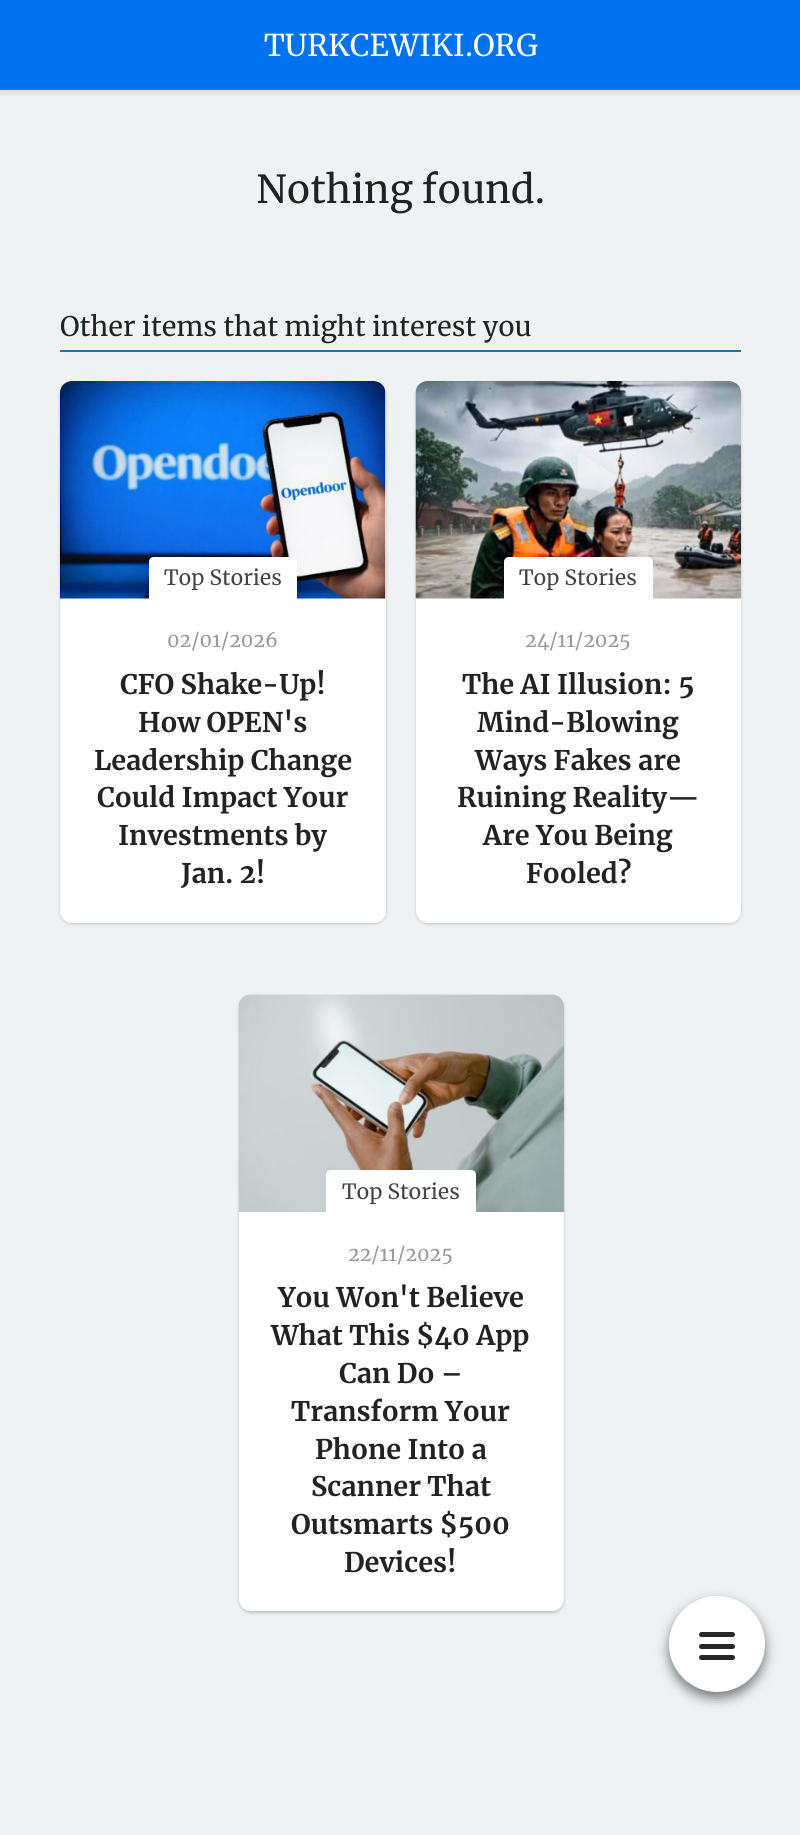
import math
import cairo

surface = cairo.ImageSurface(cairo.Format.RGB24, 800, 1835)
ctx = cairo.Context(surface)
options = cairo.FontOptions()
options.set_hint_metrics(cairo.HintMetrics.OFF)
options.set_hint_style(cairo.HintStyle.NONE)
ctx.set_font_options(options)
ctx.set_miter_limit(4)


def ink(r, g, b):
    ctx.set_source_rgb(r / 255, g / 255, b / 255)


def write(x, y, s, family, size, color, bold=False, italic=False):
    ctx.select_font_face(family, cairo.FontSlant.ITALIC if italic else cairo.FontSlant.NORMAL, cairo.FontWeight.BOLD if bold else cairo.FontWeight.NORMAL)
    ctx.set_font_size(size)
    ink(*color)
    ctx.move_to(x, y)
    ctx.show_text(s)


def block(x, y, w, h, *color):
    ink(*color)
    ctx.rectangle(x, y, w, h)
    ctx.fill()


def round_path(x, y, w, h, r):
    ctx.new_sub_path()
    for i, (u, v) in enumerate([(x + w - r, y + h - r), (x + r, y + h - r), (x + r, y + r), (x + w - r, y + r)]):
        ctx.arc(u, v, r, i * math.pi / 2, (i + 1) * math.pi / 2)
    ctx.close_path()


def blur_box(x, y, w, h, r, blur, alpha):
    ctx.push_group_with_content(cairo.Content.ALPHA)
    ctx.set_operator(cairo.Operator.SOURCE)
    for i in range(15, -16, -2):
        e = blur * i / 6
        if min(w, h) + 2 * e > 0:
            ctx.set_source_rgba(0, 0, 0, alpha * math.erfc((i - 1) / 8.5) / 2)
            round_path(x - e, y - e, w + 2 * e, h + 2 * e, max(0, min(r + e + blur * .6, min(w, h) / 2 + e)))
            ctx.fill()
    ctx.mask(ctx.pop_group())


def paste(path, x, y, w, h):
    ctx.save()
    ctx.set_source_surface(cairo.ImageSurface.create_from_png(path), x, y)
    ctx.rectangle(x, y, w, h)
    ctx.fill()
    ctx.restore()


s1 = dict(family="Merriweather", size=30, color=(255, 255, 255))
s2 = dict(family="Merriweather", size=38.5, color=(34, 34, 34))
s3 = dict(family="Merriweather", size=27, color=(34, 34, 34))
s4 = dict(family="Merriweather", size=21, color=(68, 68, 68))
s5 = dict(family="Merriweather", size=19.5, color=(153, 153, 153))
s6 = dict(family="Merriweather", size=27, color=(34, 34, 34), bold=True)

ink(238, 242, 243)
ctx.paint()
ink(0, 0, 0)
blur_box(0, 3, 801, 90, 0, 3, 0.1)
block(0, 0, 800, 90, 1, 114, 240)
write(264, 56, "TURKCEWIKI.ORG", **s1)
ink(0, 0, 0)
blur_box(669, 1602, 96, 96, 48, 6, 0.5)
ink(255, 255, 255)
ctx.arc(717, 1644, 48, 0, 2 * math.pi)
ctx.fill()
ink(40, 40, 40)
round_path(699, 1632, 36, 5, 2.5)
ctx.fill()
round_path(699, 1644, 36, 5, 2.5)
ctx.fill()
round_path(699, 1655, 36, 5, 2.5)
ctx.fill()
write(256, 203, "Nothing found.", **s2)
block(60, 350, 681, 2, 36, 113, 163)
write(60, 336, "Other items that might interest you", **s3)
ink(0, 0, 0)
blur_box(60, 383, 326, 541, 12, 1.5, 0.2)
ink(255, 255, 255)
round_path(60, 381, 326, 542, 12)
ctx.fill()
paste("pic1.png", 60, 381, 326, 218)
ctx.new_path()
ctx.move_to(154, 557)
ctx.line_to(292, 557)
ctx.curve_to(295, 557, 297, 559, 297, 562)
ctx.line_to(297, 599)
ctx.line_to(149, 599)
ctx.line_to(149, 562)
ctx.curve_to(149, 559, 151, 557, 154, 557)
ctx.close_path()
ctx.fill()
write(164, 585, "Top Stories", **s4)
write(167, 647, "02/01/2026", **s5)
write(120, 694, "CFO Shake-Up!", **s6)
write(138, 732, "How OPEN's", **s6)
write(94, 770, "Leadership Change", **s6)
write(97, 807, "Could Impact Your", **s6)
write(118, 845, "Investments by", **s6)
write(181, 883, "Jan. 2!", **s6)
ink(0, 0, 0)
blur_box(416, 383, 325, 541, 12, 1.5, 0.2)
ink(255, 255, 255)
round_path(416, 381, 325, 542, 12)
ctx.fill()
paste("pic2.png", 415, 381, 326, 218)
ctx.new_path()
ctx.move_to(509, 557)
ctx.line_to(648, 557)
ctx.curve_to(651, 557, 653, 559, 653, 562)
ctx.line_to(653, 599)
ctx.line_to(504, 599)
ctx.line_to(504, 562)
ctx.curve_to(504, 559, 506, 557, 509, 557)
ctx.close_path()
ctx.fill()
write(519, 585, "Top Stories", **s4)
write(525, 647, "24/11/2025", **s5)
write(462, 694, "The AI Illusion: 5", **s6)
write(477, 732, "Mind-Blowing", **s6)
write(475, 770, "Ways Fakes are", **s6)
write(457, 807, "Ruining Reality—", **s6)
write(483, 845, "Are You Being", **s6)
write(526, 883, "Fooled?", **s6)
ink(0, 0, 0)
blur_box(239, 996, 325, 617, 12, 1.5, 0.2)
ink(255, 255, 255)
round_path(239, 995, 325, 616, 12)
ctx.fill()
paste("pic3.png", 238, 994, 326, 218)
ctx.new_path()
ctx.move_to(331, 1170)
ctx.line_to(471, 1170)
ctx.curve_to(474, 1170, 476, 1172, 476, 1175)
ctx.line_to(476, 1212)
ctx.line_to(326, 1212)
ctx.line_to(326, 1175)
ctx.curve_to(326, 1172, 328, 1170, 331, 1170)
ctx.close_path()
ctx.fill()
write(342, 1199, "Top Stories", **s4)
write(348, 1261, "22/11/2025", **s5)
write(278, 1307, "You Won't Believe", **s6)
write(271, 1345, "What This $40 App", **s6)
write(339, 1383, "Can Do –", **s6)
write(291, 1421, "Transform Your", **s6)
write(315, 1459, "Phone Into a", **s6)
write(311, 1496, "Scanner That", **s6)
write(291, 1534, "Outsmarts $500", **s6)
write(344, 1572, "Devices!", **s6)
surface.write_to_png("screenshot.png")
